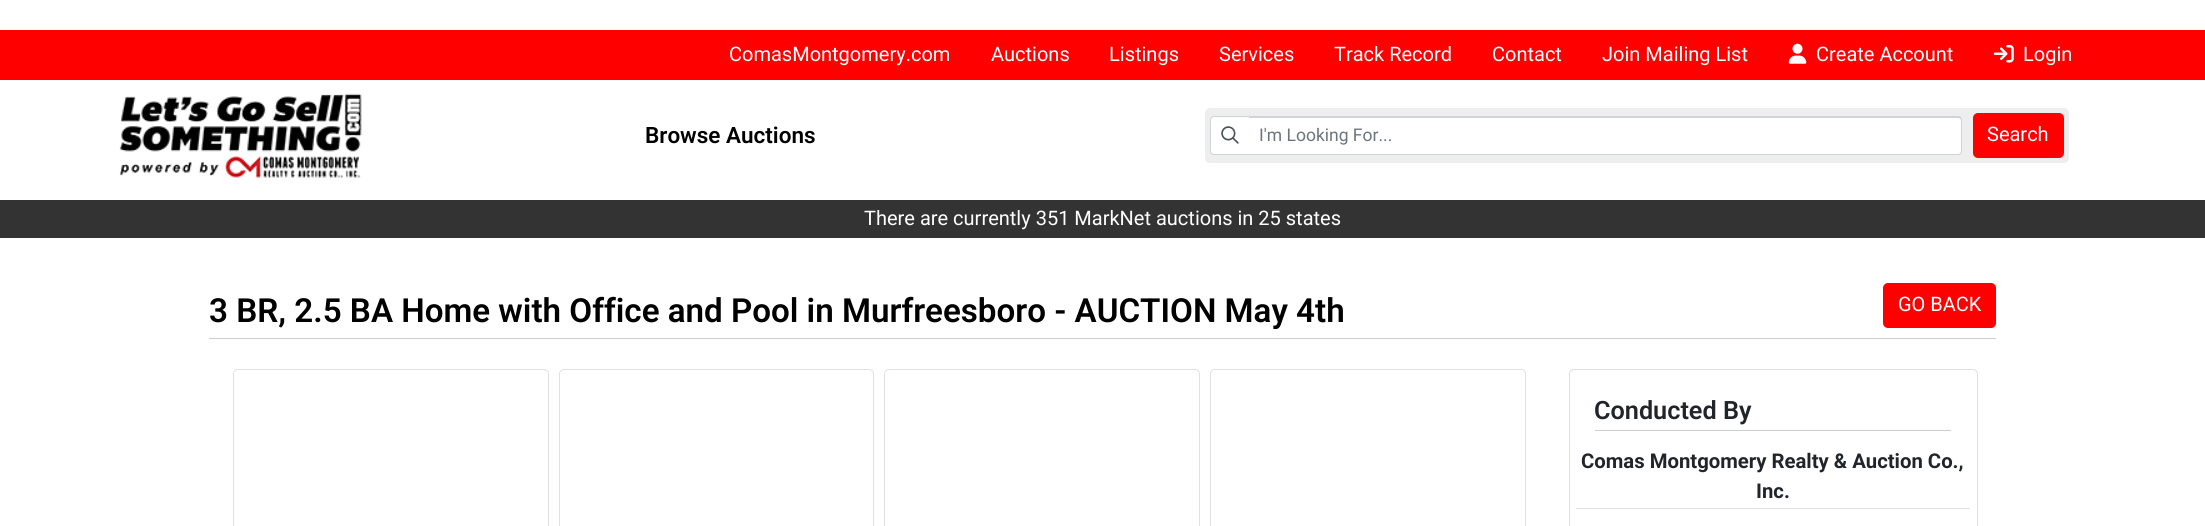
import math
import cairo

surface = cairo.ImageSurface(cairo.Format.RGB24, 2205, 526)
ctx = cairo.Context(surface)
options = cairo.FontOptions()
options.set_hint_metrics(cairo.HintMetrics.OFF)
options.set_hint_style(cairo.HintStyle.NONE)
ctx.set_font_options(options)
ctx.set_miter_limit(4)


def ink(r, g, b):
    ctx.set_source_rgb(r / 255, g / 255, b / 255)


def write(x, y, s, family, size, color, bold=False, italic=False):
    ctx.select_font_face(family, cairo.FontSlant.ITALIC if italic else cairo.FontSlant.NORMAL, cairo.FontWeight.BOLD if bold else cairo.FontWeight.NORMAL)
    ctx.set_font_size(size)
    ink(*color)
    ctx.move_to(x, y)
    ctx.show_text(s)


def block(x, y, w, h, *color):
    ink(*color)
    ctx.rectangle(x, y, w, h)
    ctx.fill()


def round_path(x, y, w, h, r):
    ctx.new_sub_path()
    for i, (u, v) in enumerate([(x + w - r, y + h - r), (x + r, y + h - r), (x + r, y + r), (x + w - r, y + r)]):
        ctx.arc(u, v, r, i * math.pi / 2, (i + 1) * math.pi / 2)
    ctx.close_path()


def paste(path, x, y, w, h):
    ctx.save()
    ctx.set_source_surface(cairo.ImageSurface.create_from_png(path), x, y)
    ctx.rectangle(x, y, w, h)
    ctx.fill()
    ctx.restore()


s1 = dict(family="Roboto", size=20, color=(255, 255, 255))
s2 = dict(family="Roboto SemiBold", size=22.5, color=(0, 0, 0))
s3 = dict(family="Roboto", size=17.5, color=(108, 117, 125))
s4 = dict(family="Roboto SemiBold", size=33.15, color=(0, 0, 0))
s5 = dict(family="Roboto SemiBold", size=25.25, color=(33, 37, 41))
s6 = dict(family="Roboto", size=20.3, color=(33, 37, 41), bold=True)

ink(255, 255, 255)
ctx.paint()
block(0, 30, 2205, 50, 255, 0, 0)
write(729, 61, "ComasMontgomery.com", **s1)
write(991, 61, "Auctions", **s1)
write(1109, 61, "Listings", **s1)
write(1219, 61, "Services", **s1)
write(1334, 61, "Track Record", **s1)
write(1492, 61, "Contact", **s1)
write(1602, 61, "Join Mailing List", **s1)
paste("pic1.png", 1788, 43, 19, 21)
write(1816, 61, "Create Account", **s1)
paste("pic2.png", 1993, 45, 21, 18)
write(2023, 61, "Login", **s1)
paste("pic3.png", 119, 93, 243, 85)
write(645, 143, "Browse Auctions", **s2)
ink(238, 238, 238)
round_path(1205, 108, 864, 55, 5)
ctx.fill()
ink(255, 255, 255)
ctx.new_path()
ctx.move_to(1214, 116.5)
ctx.line_to(1249.5, 116.5)
ctx.line_to(1249.5, 154.5)
ctx.line_to(1214, 154.5)
ctx.curve_to(1212, 154.5, 1210.5, 153, 1210.5, 151)
ctx.line_to(1210.5, 120)
ctx.curve_to(1210.5, 118, 1212, 116.5, 1214, 116.5)
ctx.close_path()
ctx.fill_preserve()
ink(206, 212, 218)
ctx.set_line_width(1)
ctx.stroke()
paste("pic4.png", 1221, 126, 18, 18)
ink(255, 255, 255)
ctx.new_path()
ctx.move_to(1249, 118)
ctx.line_to(1958.5, 118)
ctx.curve_to(1960, 118, 1961, 119, 1961, 120.5)
ctx.line_to(1961, 151.5)
ctx.curve_to(1961, 153, 1960, 154, 1958.5, 154)
ctx.line_to(1249, 154)
ctx.close_path()
ctx.fill()
ink(206, 212, 218)
ctx.set_fill_rule(cairo.FillRule.EVEN_ODD)
ctx.new_path()
ctx.move_to(1249, 116)
ctx.line_to(1958, 116)
ctx.curve_to(1961, 116, 1962, 118, 1962, 120)
ctx.line_to(1962, 151)
ctx.curve_to(1962, 153, 1961, 155, 1958, 155)
ctx.line_to(1249, 155)
ctx.close_path()
ctx.move_to(1249, 118)
ctx.line_to(1958, 118)
ctx.curve_to(1960, 118, 1961, 119, 1961, 120)
ctx.line_to(1961, 151)
ctx.curve_to(1961, 153, 1960, 154, 1958, 154)
ctx.line_to(1249, 154)
ctx.close_path()
ctx.fill()
write(1259, 141, "I'm Looking For...", **s3)
ink(255, 0, 0)
round_path(1973, 113, 91, 45, 5)
ctx.fill()
write(1987, 141, "Search", **s1)
block(0, 200, 2205, 38, 51, 51, 51)
write(864, 225, "There are currently 351 MarkNet auctions in 25 states", **s1)
block(209, 338, 1787, 1, 205, 205, 205)
write(209, 322, "3 BR, 2.5 BA Home with Office and Pool in Murfreesboro - AUCTION May 4th", **s4)
ink(255, 0, 0)
round_path(1883, 283, 113, 45, 5)
ctx.fill()
write(1898, 311, "GO BACK", **s1)
round_path(233.5, 369.5, 315, 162, 4.5)
ink(222, 226, 230)
ctx.stroke()
round_path(559.5, 369.5, 314, 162, 4.5)
ctx.stroke()
round_path(884.5, 369.5, 315, 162, 4.5)
ctx.stroke()
round_path(1210.5, 369.5, 315, 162, 4.5)
ctx.stroke()
round_path(1569.5, 369.5, 408, 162, 4.5)
ink(223, 223, 223)
ctx.stroke()
block(1595, 430, 356, 1, 205, 205, 205)
write(1594, 419, "Conducted By", **s5)
block(1576, 508, 394, 1, 222, 226, 230)
write(1581, 468, "Comas Montgomery Realty & Auction Co.,", **s6)
write(1756, 498, "Inc.", **s6)
surface.write_to_png("screenshot.png")
